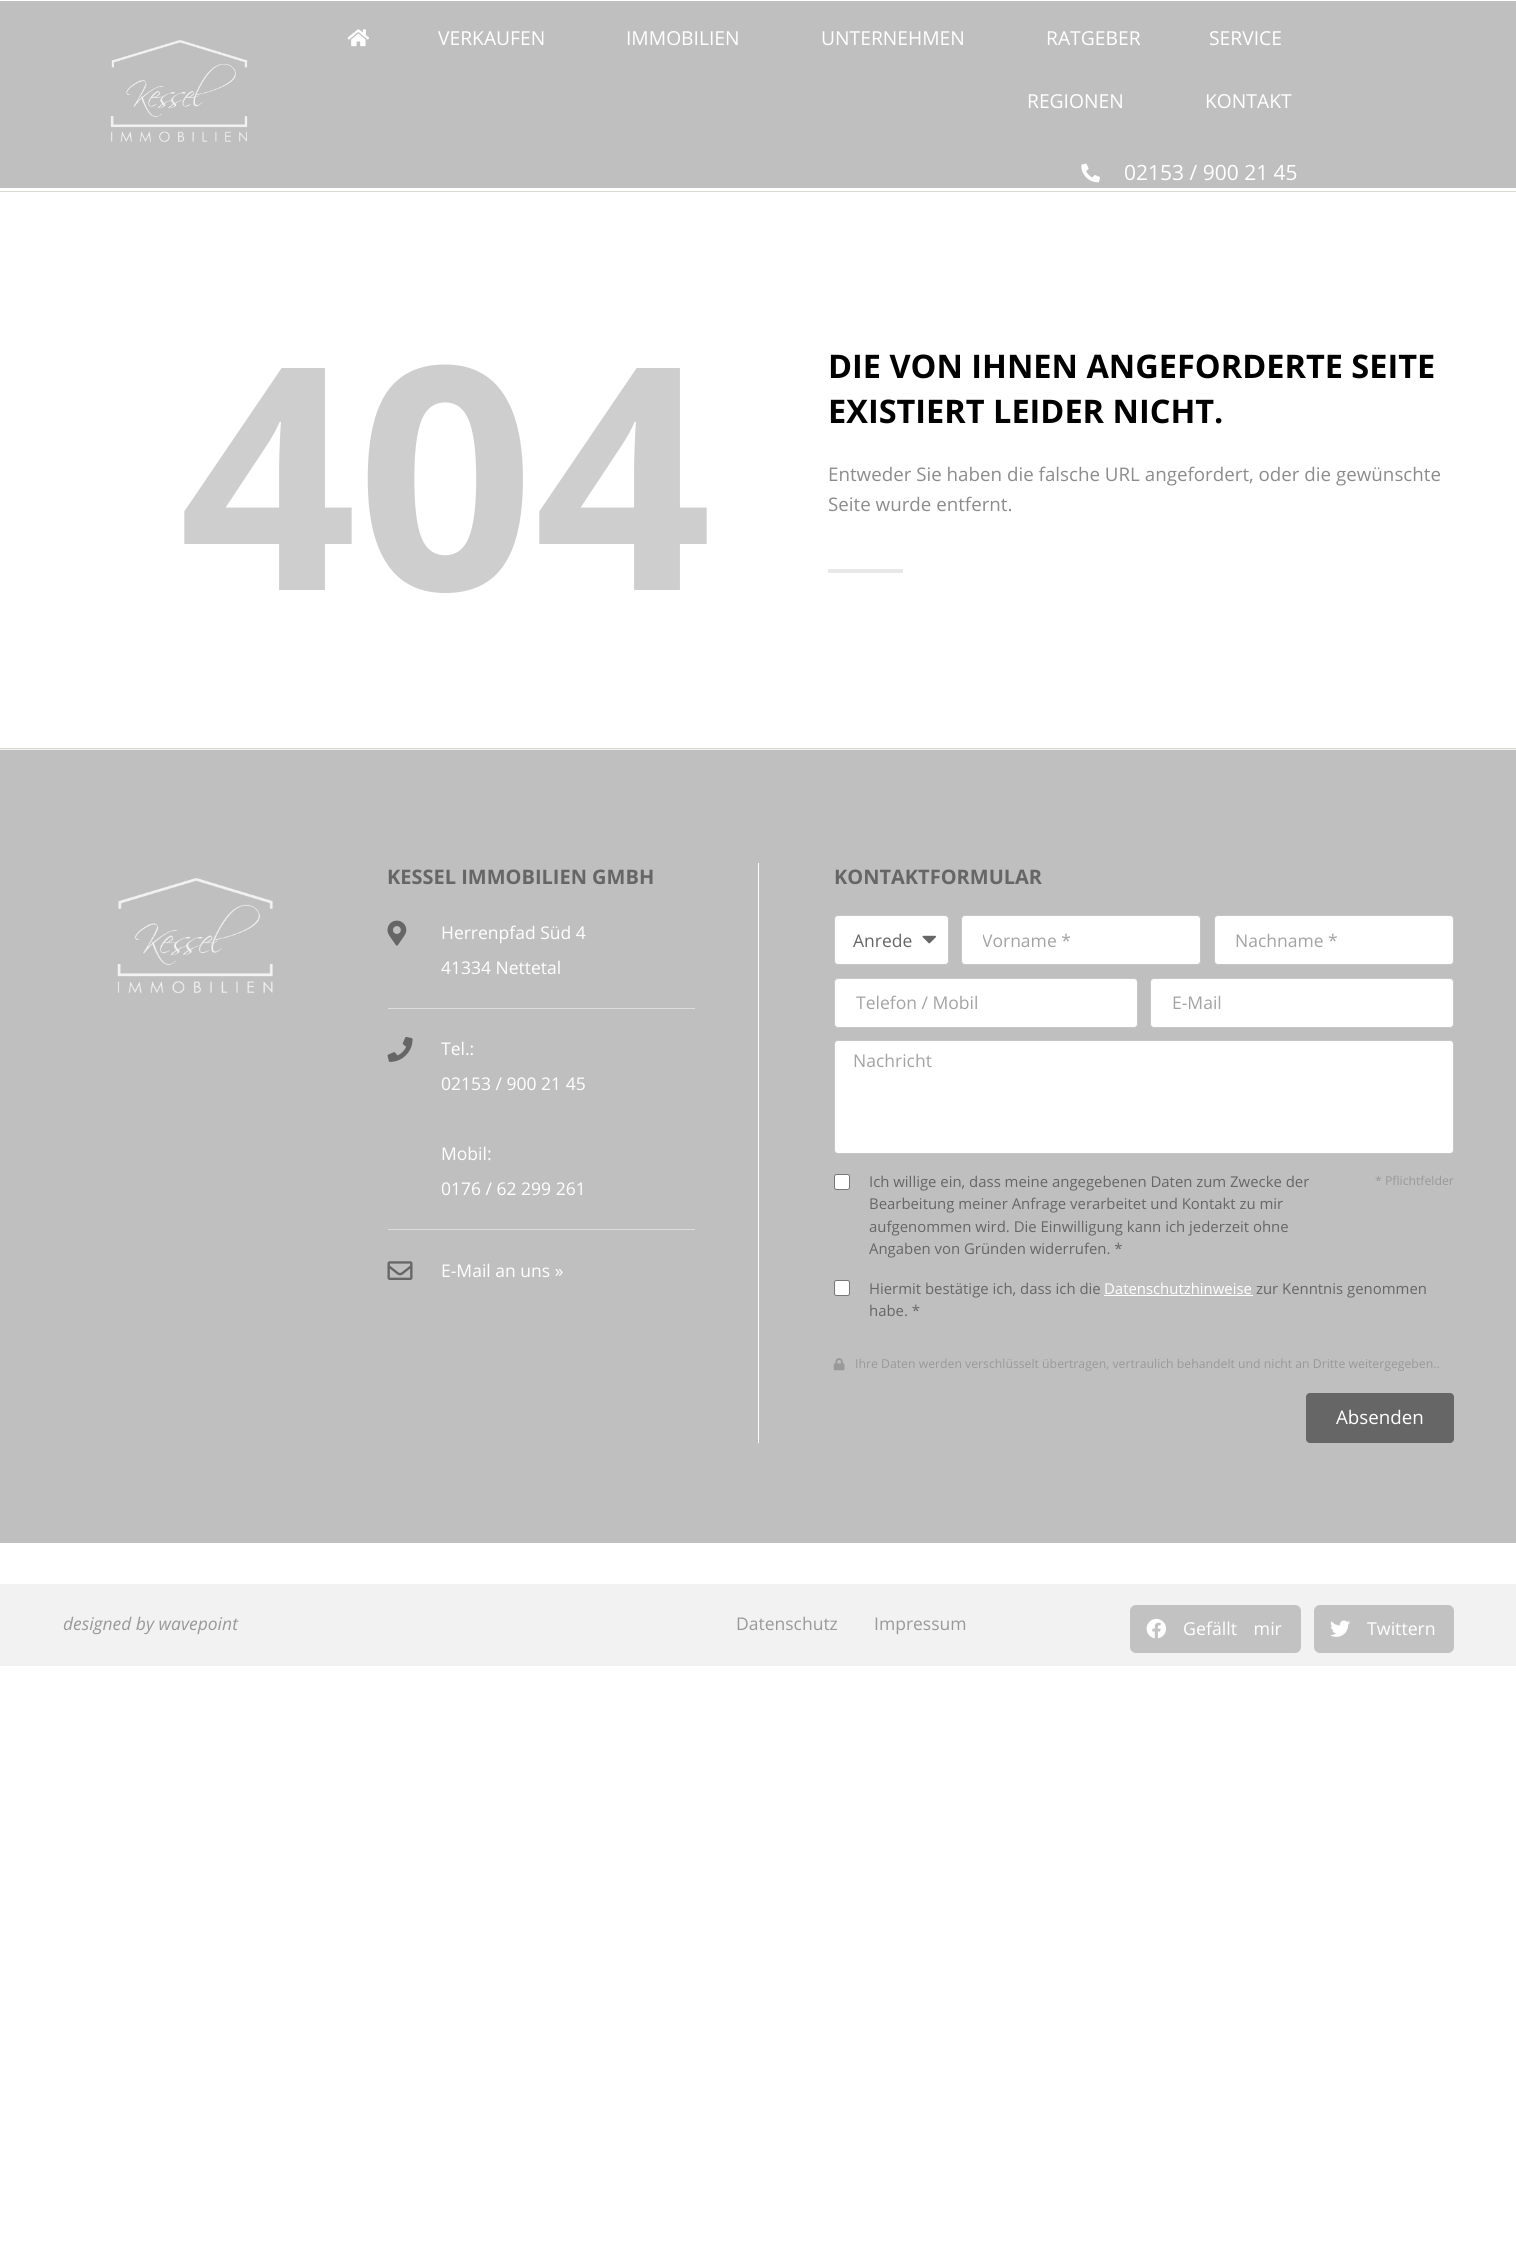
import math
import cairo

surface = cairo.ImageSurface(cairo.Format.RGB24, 1516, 2253)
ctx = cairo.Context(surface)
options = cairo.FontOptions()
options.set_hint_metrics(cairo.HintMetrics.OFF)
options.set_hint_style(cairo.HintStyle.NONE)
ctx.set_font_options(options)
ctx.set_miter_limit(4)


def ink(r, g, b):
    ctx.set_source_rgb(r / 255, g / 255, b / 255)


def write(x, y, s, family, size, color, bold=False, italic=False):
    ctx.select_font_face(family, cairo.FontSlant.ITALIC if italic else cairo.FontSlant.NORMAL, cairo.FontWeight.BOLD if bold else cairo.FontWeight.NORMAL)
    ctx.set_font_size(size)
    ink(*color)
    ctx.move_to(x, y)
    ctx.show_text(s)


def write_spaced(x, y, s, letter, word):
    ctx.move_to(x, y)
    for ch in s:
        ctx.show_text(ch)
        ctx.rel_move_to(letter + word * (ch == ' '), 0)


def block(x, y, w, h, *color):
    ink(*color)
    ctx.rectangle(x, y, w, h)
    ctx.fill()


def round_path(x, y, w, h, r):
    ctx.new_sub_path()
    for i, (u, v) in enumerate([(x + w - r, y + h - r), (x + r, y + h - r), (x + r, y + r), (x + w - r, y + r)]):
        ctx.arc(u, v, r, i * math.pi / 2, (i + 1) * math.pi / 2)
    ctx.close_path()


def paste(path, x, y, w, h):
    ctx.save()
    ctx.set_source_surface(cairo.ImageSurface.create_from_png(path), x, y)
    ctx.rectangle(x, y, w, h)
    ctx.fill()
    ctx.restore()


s1 = dict(family="Open Sans", size=19.25, color=(255, 255, 255))
s2 = dict(family="Open Sans", size=21, color=(255, 255, 255))
s3 = dict(family="Open Sans", size=17.5, color=(153, 153, 153), italic=True)
s4 = dict(family="Open Sans", size=17.5, color=(153, 153, 153))
s5 = dict(family="Open Sans", size=17.75, color=(255, 255, 255))
s6 = dict(family="Open Sans", size=311, color=(206, 206, 206), bold=True)
s7 = dict(family="Open Sans", size=32.5, color=(0, 0, 0), bold=True)
s8 = dict(family="Open Sans", size=18.75, color=(140, 140, 140))
s9 = dict(family="Open Sans", size=20, color=(102, 102, 102), bold=True)
s10 = dict(family="Open Sans", size=17.5, color=(255, 255, 255))
s11 = dict(family="Open Sans", size=17.5, color=(102, 102, 102))
s12 = dict(family="Open Sans", size=17.5, color=(163, 163, 163))
s13 = dict(family="Open Sans", size=14.9, color=(102, 102, 102))
s14 = dict(family="Open Sans", size=12.25, color=(153, 153, 153))
s15 = dict(family="Open Sans", size=14.9, color=(255, 255, 255))
s16 = dict(family="Open Sans", size=18.75, color=(255, 255, 255))

ink(255, 255, 255)
ctx.paint()
block(0, 1, 1516, 187, 191, 191, 191)
paste("pic1.png", 110, 40, 138, 102)
paste("pic2.png", 347, 29, 22, 18)
write(438, 45, "VERKAUFEN", **s1)
write(626, 45, "IMMOBILIEN", **s1)
write(821, 45, "UNTERNEHMEN", **s1)
write(1046, 45, "RATGEBER", **s1)
write(1209, 45, "SERVICE", **s1)
write(1027, 108, "REGIONEN", **s1)
write(1205, 108, "KONTAKT", **s1)
paste("pic3.png", 1081, 163, 19, 20)
write(1124, 180, "02153 / 900 21 45", **s2)
block(0, 1584, 1516, 82, 242, 242, 242)
write(63, 1630, "designed by wavepoint", **s3)
write(736, 1630, "Datenschutz", **s4)
write(874, 1630, "Impressum", **s4)
ink(194, 194, 194)
round_path(1130, 1605, 171, 48, 6)
ctx.fill()
paste("pic4.png", 1146, 1618, 21, 21)
ctx.set_font_size(17.75)
ink(255, 255, 255)
write_spaced(1183, 1635, "Gefällt mir", 0, 12)
ink(194, 194, 194)
round_path(1314, 1605, 140, 48, 6)
ctx.fill()
paste("pic5.png", 1330, 1620, 20, 17)
write(1367, 1635, "Twittern", **s5)
block(0, 191, 1516, 1, 216, 218, 205)
block(0, 748, 1516, 1, 216, 218, 205)
write(179, 590, "404", **s6)
write(828, 378, "DIE VON IHNEN ANGEFORDERTE SEITE", **s7)
write(828, 423, "EXISTIERT LEIDER NICHT.", **s7)
write(828, 481, "Entweder Sie haben die falsche URL angefordert, oder die gewünschte", **s8)
write(828, 511, "Seite wurde entfernt.", **s8)
block(828, 569, 75, 4, 232, 232, 232)
block(0, 750, 1516, 793, 191, 191, 191)
block(0, 749, 1516, 1, 242, 242, 242)
paste("pic6.png", 117, 878, 156, 116)
write(387, 884, "KESSEL IMMOBILIEN GMBH", **s9)
paste("pic7.png", 387, 920, 20, 26)
write(441, 939, "Herrenpfad Süd 4", **s10)
write(441, 974, "41334 Nettetal", **s10)
block(388, 1008, 307, 1, 221, 221, 221)
paste("pic8.png", 387, 1036, 26, 26)
write(441, 1055, "Tel.:", **s10)
write(441, 1090, "02153 / 900 21 45", **s10)
write(441, 1160, "Mobil:", **s10)
write(441, 1195, "0176 / 62 299 261", **s10)
block(388, 1229, 307, 1, 221, 221, 221)
paste("pic9.png", 387, 1261, 26, 19)
write(441, 1277, "E-Mail an uns »", **s10)
block(758, 863, 1, 580, 255, 255, 255)
write(834, 884, "KONTAKTFORMULAR", **s9)
ink(255, 255, 255)
round_path(834.5, 915.5, 114, 49, 3.5)
ctx.fill_preserve()
ink(198, 198, 198)
ctx.set_line_width(1)
ctx.stroke()
write(853, 947, "Anrede", **s11)
paste("pic10.png", 922, 935, 14, 9)
ink(255, 255, 255)
round_path(961.5, 915.5, 239, 49, 3.5)
ctx.fill_preserve()
ink(198, 198, 198)
ctx.stroke()
ctx.save()
ctx.rectangle(983, 928, 197, 23)
ctx.clip()
write(982, 947, "Vorname *", **s12)
ctx.restore()
ink(255, 255, 255)
round_path(1214.5, 915.5, 239, 49, 3.5)
ctx.fill_preserve()
ink(198, 198, 198)
ctx.stroke()
write(1235, 947, "Nachname *", **s12)
ink(255, 255, 255)
round_path(834.5, 978.5, 303, 49, 3.5)
ctx.fill_preserve()
ink(198, 198, 198)
ctx.stroke()
write(856, 1009, "Telefon / Mobil", **s12)
ink(255, 255, 255)
round_path(1150.5, 978.5, 303, 49, 3.5)
ctx.fill_preserve()
ink(198, 198, 198)
ctx.stroke()
write(1172, 1009, "E-Mail", **s12)
ink(255, 255, 255)
round_path(834.5, 1040.5, 619, 113, 3.5)
ctx.fill_preserve()
ink(198, 198, 198)
ctx.stroke()
write(853, 1067, "Nachricht", **s12)
ink(255, 255, 255)
round_path(834.5, 1174.5, 15, 15, 2)
ctx.fill_preserve()
ink(118, 118, 118)
ctx.stroke()
write(869, 1187, "Ich willige ein, dass meine angegebenen Daten zum Zwecke der", **s13)
write(869, 1209, "Bearbeitung meiner Anfrage verarbeitet und Kontakt zu mir", **s13)
write(869, 1232, "aufgenommen wird. Die Einwilligung kann ich jederzeit ohne", **s13)
write(869, 1254, "Angaben von Gründen widerrufen. *", **s13)
write(1375, 1185, "* Pflichtfelder", **s14)
ink(255, 255, 255)
round_path(834.5, 1280.5, 15, 15, 2)
ctx.fill_preserve()
ink(118, 118, 118)
ctx.stroke()
write(869, 1294, "Hiermit bestätige ich, dass ich die", **s13)
write(1104, 1294, "Datenschutzhinweise", **s15)
block(1104, 1295, 149, 1, 255, 255, 255)
write(1256, 1294, "zur Kenntnis genommen", **s13)
write(869, 1316, "habe. *", **s13)
paste("pic11.png", 833, 1358, 12, 13)
write(855, 1368, "Ihre Daten werden verschlüsselt übertragen, vertraulich behandelt und nicht an Dritte weitergegeben..", **s14)
ink(102, 102, 102)
round_path(1306, 1393, 148, 50, 4)
ctx.fill()
write(1336, 1424, "Absenden", **s16)
surface.write_to_png("screenshot.png")
